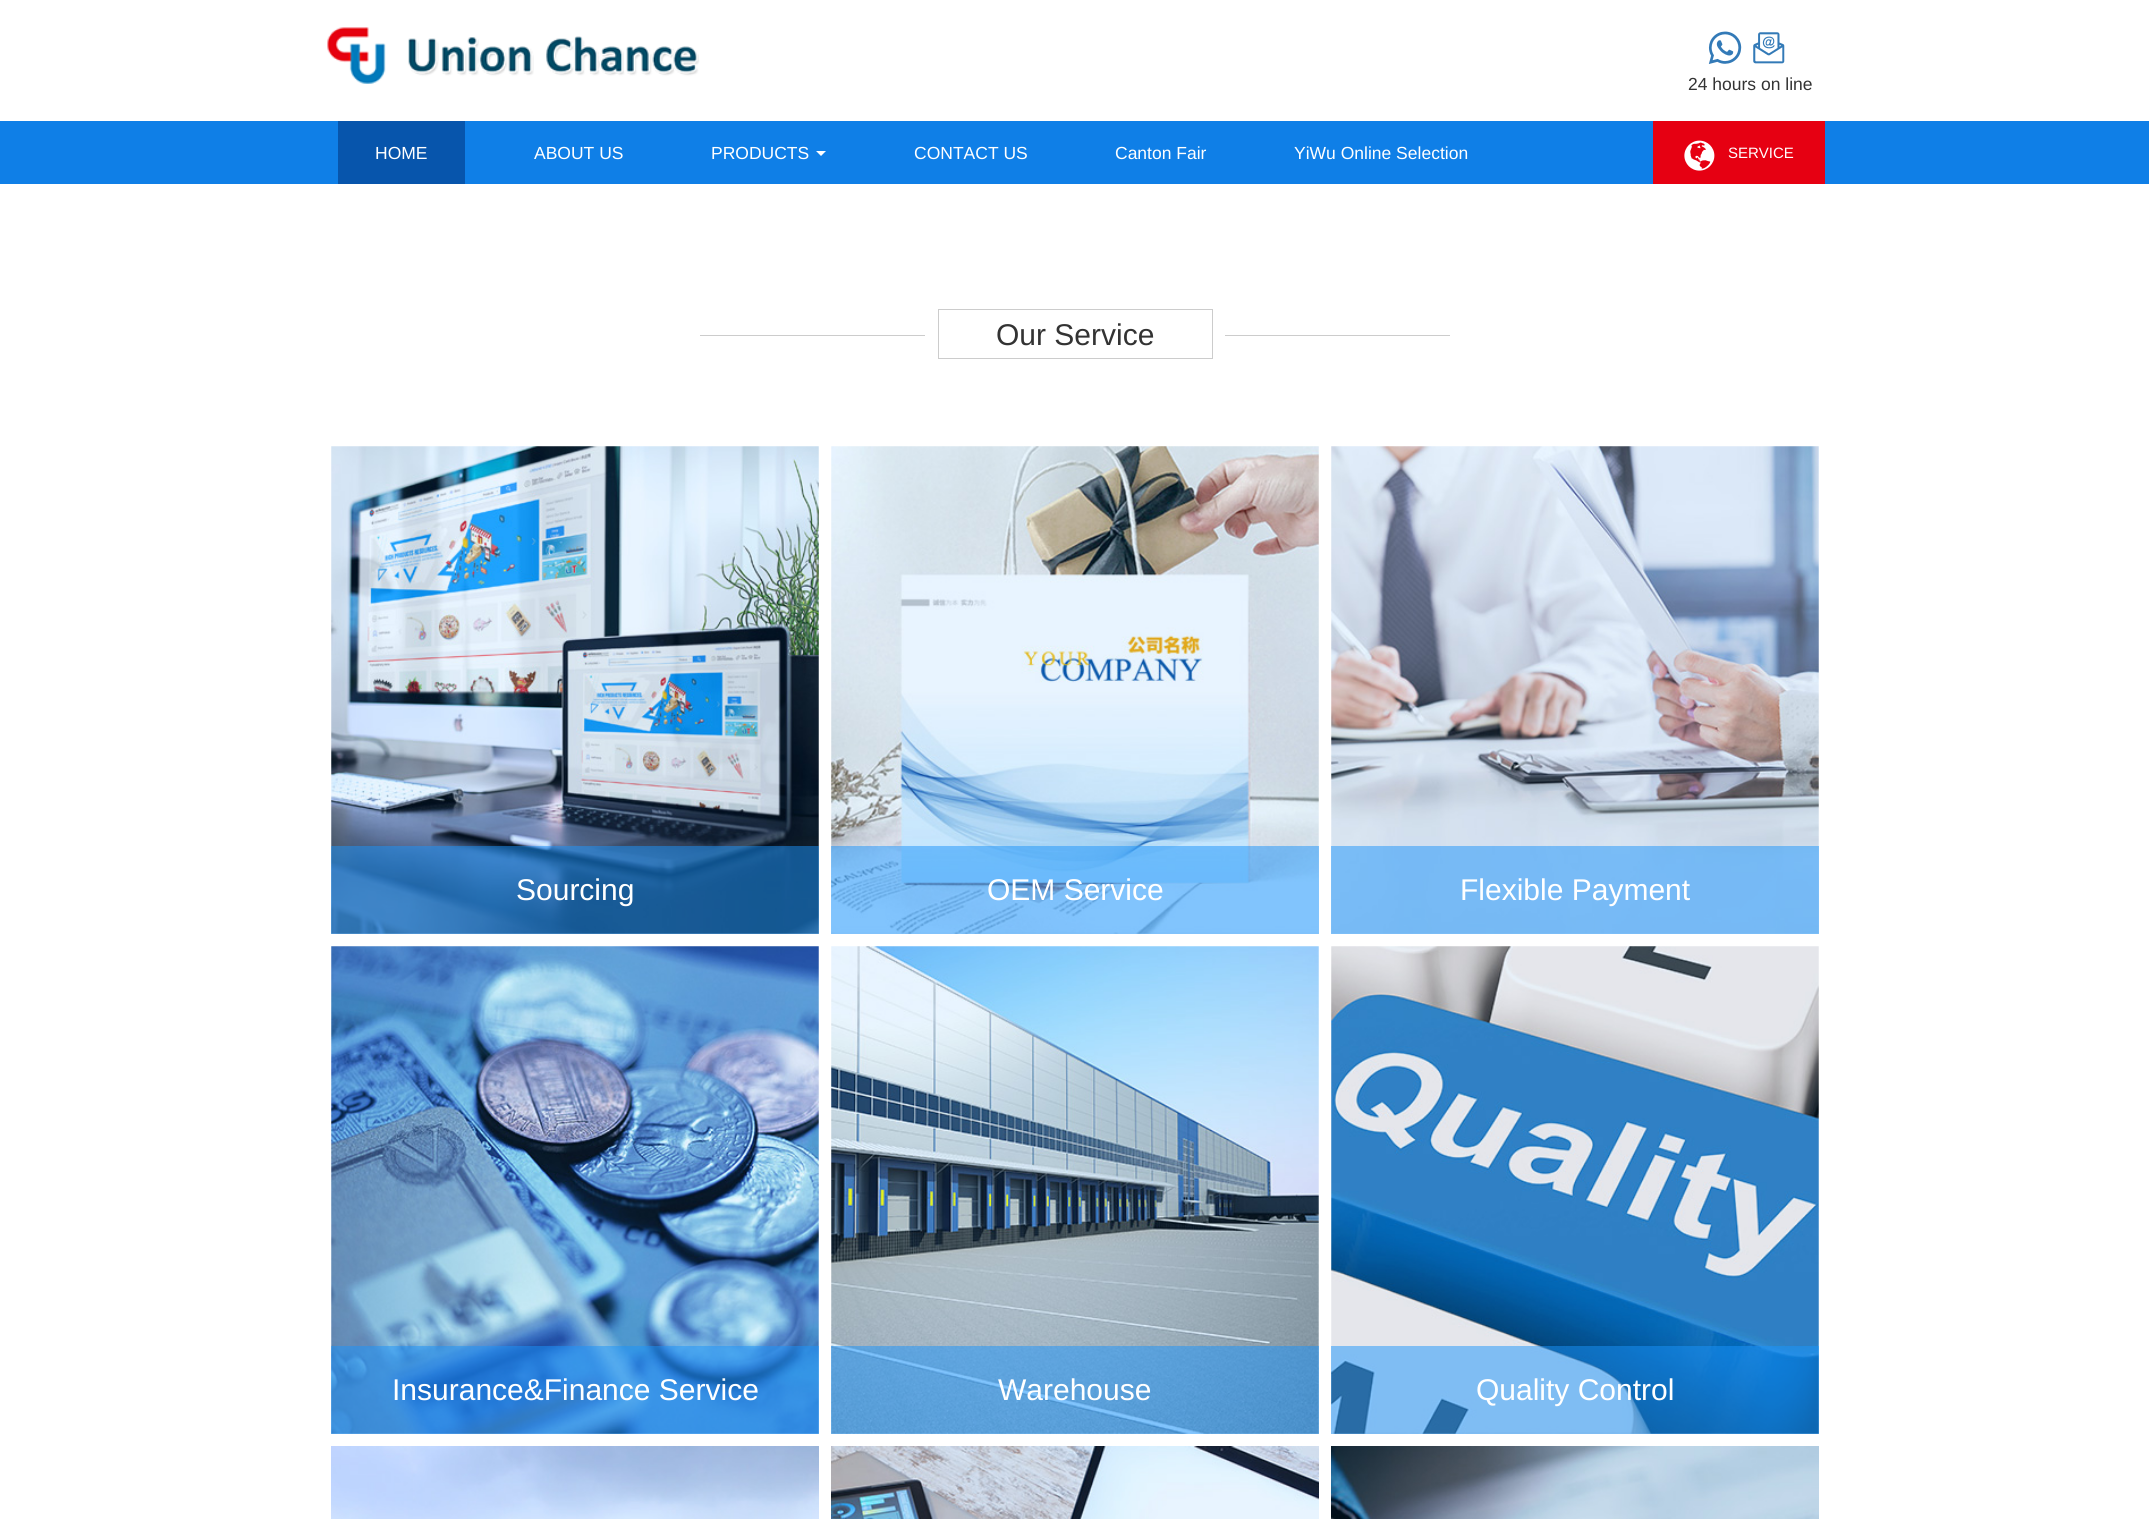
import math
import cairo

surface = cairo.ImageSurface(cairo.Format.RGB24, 2149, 1519)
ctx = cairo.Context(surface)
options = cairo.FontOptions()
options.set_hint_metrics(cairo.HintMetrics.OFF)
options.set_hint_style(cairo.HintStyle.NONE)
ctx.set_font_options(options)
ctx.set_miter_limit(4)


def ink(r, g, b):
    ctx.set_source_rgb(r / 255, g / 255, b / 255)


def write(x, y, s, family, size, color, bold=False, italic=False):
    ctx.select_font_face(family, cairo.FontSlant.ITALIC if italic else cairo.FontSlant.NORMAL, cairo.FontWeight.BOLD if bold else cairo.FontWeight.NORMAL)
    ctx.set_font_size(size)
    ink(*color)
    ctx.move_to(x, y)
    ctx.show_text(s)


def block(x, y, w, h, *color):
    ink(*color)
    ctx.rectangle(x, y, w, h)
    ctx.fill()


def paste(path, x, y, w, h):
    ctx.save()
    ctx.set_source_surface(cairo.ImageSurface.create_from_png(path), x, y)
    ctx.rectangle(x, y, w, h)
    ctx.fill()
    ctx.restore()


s1 = dict(family="Liberation Sans", size=17.5, color=(51, 51, 51))
s2 = dict(family="Liberation Sans", size=17.5, color=(255, 255, 255))
s3 = dict(family="Liberation Sans", size=15, color=(255, 255, 255))
s4 = dict(family="Liberation Sans", size=30, color=(51, 51, 51))
s5 = dict(family="Liberation Sans", size=30, color=(255, 255, 255))

ink(255, 255, 255)
ctx.paint()
paste("pic1.png", 327, 27, 373, 57)
paste("pic2.png", 1708, 31, 34, 33)
paste("pic3.png", 1753, 32, 32, 32)
write(1688, 90, "24 hours on line", **s1)
block(0, 121, 2149, 63, 15, 127, 231)
block(338, 121, 127, 63, 7, 85, 172)
write(375, 159, "HOME", **s2)
write(534, 159, "ABOUT US", **s2)
write(711, 159, "PRODUCTS", **s2)
ctx.new_path()
ctx.move_to(816, 151)
ctx.line_to(826, 151)
ctx.line_to(821, 156)
ctx.close_path()
ctx.fill()
write(914, 159, "CONTACT US", **s2)
write(1115, 159, "Canton Fair", **s2)
write(1294, 159, "YiWu Online Selection", **s2)
block(1653, 121, 172, 63, 230, 0, 18)
paste("pic4.png", 1684, 140, 31, 31)
write(1728, 158, "SERVICE", **s3)
ctx.rectangle(938.5, 309.5, 274, 49)
ink(204, 204, 204)
ctx.set_line_width(1)
ctx.stroke()
block(700, 335, 225, 1, 204, 204, 204)
write(996, 345, "Our Service", **s4)
block(1225, 335, 225, 1, 204, 204, 204)
paste("pic5.png", 331, 446, 488, 488)
ctx.set_source_rgba(0.102, 0.58, 0.992, 0.5)
ctx.rectangle(331, 846, 488, 88)
ctx.fill()
write(516, 900, "Sourcing", **s5)
paste("pic6.png", 831, 446, 488, 488)
ctx.set_source_rgba(0.102, 0.58, 0.992, 0.5)
ctx.rectangle(831, 846, 488, 88)
ctx.fill()
write(987, 900, "OEM Service", **s5)
paste("pic7.png", 1331, 446, 488, 488)
ctx.set_source_rgba(0.102, 0.58, 0.992, 0.5)
ctx.rectangle(1331, 846, 488, 88)
ctx.fill()
write(1460, 900, "Flexible Payment", **s5)
paste("pic8.png", 331, 946, 488, 488)
ctx.set_source_rgba(0.102, 0.58, 0.992, 0.5)
ctx.rectangle(331, 1346, 488, 88)
ctx.fill()
write(392, 1400, "Insurance&Finance Service", **s5)
paste("pic9.png", 831, 946, 488, 488)
ctx.set_source_rgba(0.102, 0.58, 0.992, 0.5)
ctx.rectangle(831, 1346, 488, 88)
ctx.fill()
write(998, 1400, "Warehouse", **s5)
paste("pic10.png", 1331, 946, 488, 488)
ctx.set_source_rgba(0.102, 0.58, 0.992, 0.5)
ctx.rectangle(1331, 1346, 488, 88)
ctx.fill()
write(1476, 1400, "Quality Control", **s5)
paste("pic11.png", 331, 1446, 488, 73)
paste("pic12.png", 831, 1446, 488, 73)
paste("pic13.png", 1331, 1446, 488, 73)
surface.write_to_png("screenshot.png")
